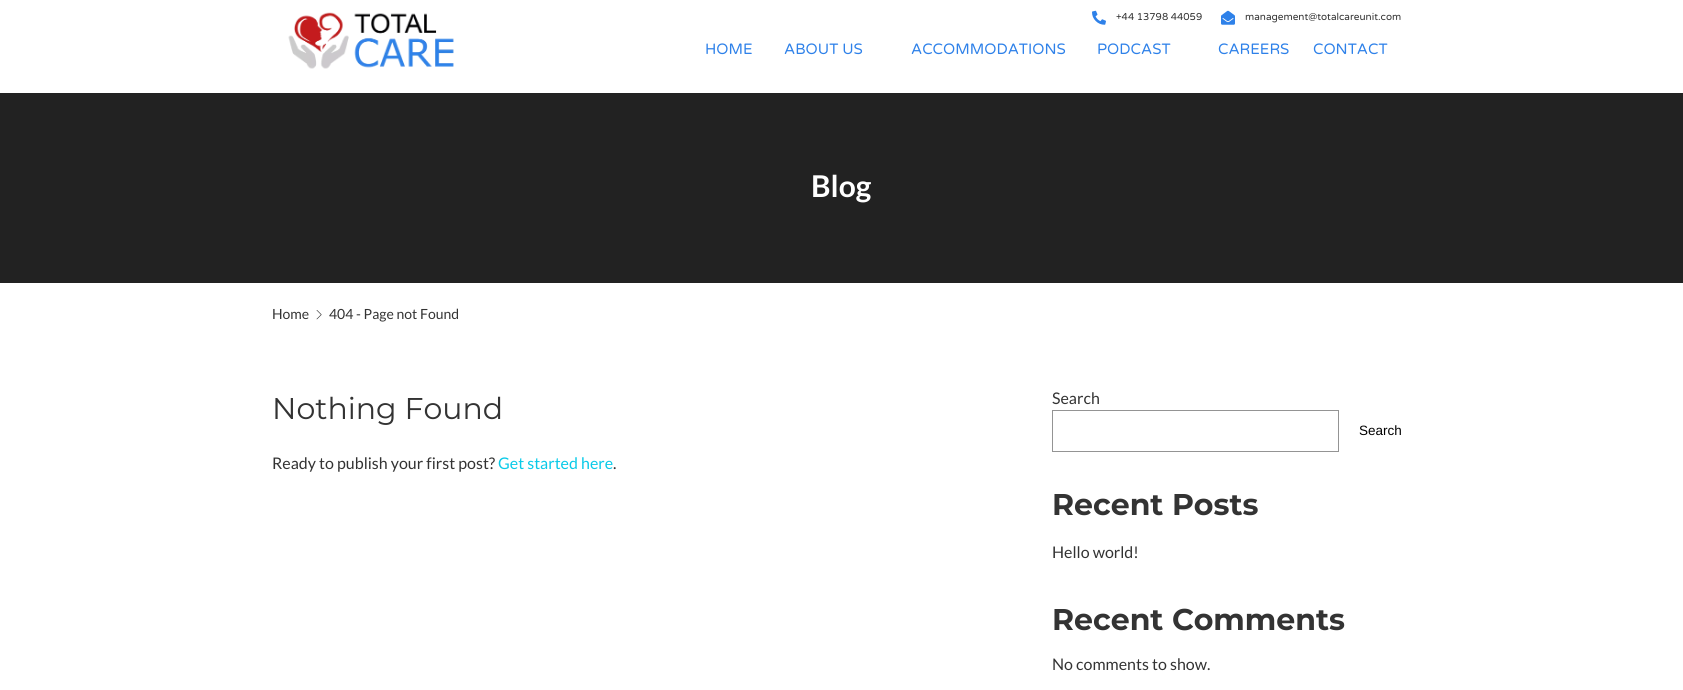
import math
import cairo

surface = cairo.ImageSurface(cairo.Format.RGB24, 1683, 690)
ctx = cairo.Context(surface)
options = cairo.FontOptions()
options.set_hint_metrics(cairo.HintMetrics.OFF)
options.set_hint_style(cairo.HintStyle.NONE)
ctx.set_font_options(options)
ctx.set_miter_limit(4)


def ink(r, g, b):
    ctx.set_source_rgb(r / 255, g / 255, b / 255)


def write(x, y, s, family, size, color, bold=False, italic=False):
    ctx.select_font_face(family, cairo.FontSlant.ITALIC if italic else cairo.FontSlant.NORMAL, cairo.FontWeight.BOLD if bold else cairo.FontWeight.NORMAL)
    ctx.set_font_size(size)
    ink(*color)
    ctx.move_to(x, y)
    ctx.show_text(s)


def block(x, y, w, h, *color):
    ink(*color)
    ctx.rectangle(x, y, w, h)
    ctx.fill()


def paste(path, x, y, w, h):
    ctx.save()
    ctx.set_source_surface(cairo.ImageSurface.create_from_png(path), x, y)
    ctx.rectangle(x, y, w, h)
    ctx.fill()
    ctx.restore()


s1 = dict(family="Varela Round", size=10, color=(51, 51, 51))
s2 = dict(family="Varela Round", size=15, color=(46, 129, 233))
s3 = dict(family="Lato", size=30, color=(255, 255, 255), bold=True)
s4 = dict(family="Lato", size=14, color=(51, 51, 51))
s5 = dict(family="Montserrat", size=30, color=(51, 51, 51))
s6 = dict(family="Lato", size=16, color=(51, 51, 51))
s7 = dict(family="Lato", size=16, color=(8, 202, 232))
s8 = dict(family="Liberation Sans", size=13.5, color=(0, 0, 0))
s9 = dict(family="Montserrat", size=30, color=(51, 51, 51), bold=True)

ink(255, 255, 255)
ctx.paint()
paste("pic1.png", 288, 12, 166, 57)
paste("pic2.png", 1092, 10, 14, 15)
write(1116, 20, "+44 13798 44059", **s1)
paste("pic3.png", 1221, 10, 14, 15)
write(1245, 20, "management@totalcareunit.com", **s1)
write(705, 54, "HOME", **s2)
write(784, 54, "ABOUT US", **s2)
write(911, 54, "ACCOMMODATIONS", **s2)
write(1097, 54, "PODCAST", **s2)
write(1218, 54, "CAREERS", **s2)
write(1313, 54, "CONTACT", **s2)
block(0, 93, 1683, 190, 34, 34, 34)
write(811, 197, "Blog", **s3)
write(272, 319, "Home", **s4)
paste("pic4.png", 316, 310, 6, 10)
write(329, 319, "404 - Page not Found", **s4)
write(272, 419, "Nothing Found", **s5)
write(272, 469, "Ready to publish your first post?", **s6)
write(498, 469, "Get started here", **s7)
write(613, 469, ".", **s6)
write(1052, 404, "Search", **s6)
ctx.rectangle(1052.5, 410.5, 286, 41)
ink(148, 148, 148)
ctx.set_line_width(1)
ctx.stroke()
write(1359, 435, "Search", **s8)
write(1052, 515, "Recent Posts", **s9)
write(1052, 558, "Hello world!", **s6)
write(1052, 630, "Recent Comments", **s9)
write(1052, 670, "No comments to show.", **s6)
surface.write_to_png("screenshot.png")
